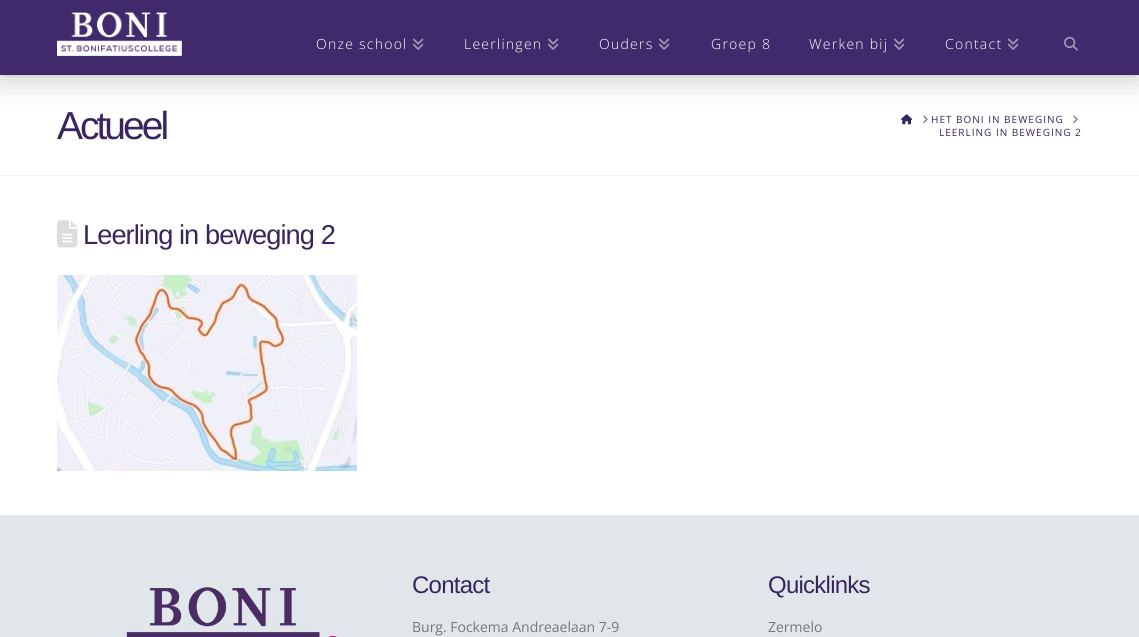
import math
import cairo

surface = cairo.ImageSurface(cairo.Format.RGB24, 1139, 637)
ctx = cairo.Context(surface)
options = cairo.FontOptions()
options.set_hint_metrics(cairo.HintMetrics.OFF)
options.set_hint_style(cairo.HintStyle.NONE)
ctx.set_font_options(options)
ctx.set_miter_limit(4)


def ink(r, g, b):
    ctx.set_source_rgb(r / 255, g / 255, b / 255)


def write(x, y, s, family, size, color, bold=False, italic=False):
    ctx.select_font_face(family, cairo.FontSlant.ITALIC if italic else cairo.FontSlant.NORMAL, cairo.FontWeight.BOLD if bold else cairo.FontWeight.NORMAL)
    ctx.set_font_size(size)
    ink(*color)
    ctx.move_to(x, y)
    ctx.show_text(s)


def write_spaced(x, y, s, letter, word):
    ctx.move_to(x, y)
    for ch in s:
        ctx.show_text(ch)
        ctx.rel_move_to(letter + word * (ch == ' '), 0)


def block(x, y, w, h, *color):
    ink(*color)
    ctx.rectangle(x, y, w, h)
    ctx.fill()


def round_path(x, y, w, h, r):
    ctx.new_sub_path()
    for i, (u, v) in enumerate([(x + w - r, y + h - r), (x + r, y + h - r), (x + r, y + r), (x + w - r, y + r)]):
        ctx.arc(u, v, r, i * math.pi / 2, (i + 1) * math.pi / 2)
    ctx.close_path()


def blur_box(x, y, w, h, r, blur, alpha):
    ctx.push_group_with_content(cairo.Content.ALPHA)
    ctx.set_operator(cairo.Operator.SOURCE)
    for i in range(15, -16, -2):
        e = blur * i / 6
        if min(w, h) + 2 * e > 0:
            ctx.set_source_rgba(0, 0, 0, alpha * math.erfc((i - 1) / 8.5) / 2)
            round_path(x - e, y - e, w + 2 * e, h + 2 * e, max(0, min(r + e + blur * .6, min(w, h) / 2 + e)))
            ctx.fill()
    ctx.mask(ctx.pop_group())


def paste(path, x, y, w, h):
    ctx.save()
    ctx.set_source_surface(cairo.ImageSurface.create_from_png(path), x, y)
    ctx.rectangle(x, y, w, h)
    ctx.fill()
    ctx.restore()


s1 = dict(family="Open Sans", size=14, color=(119, 119, 119))

ink(255, 255, 255)
ctx.paint()
block(0, 75, 1139, 1, 242, 242, 242)
paste("pic4.png", 901, 114, 12, 11)
paste("pic5.png", 923, 115, 5, 8)
paste("pic5.png", 1073, 115, 5, 8)
ink(0, 0, 0)
blur_box(0, 0, 1139, 75, 0, 17.5, 0.25)
block(0, 0, 1139, 75, 65, 42, 107)
paste("pic1.png", 57, 12, 125, 44)
ctx.select_font_face("Open Sans Light")
ctx.set_font_size(14)
ink(255, 255, 255)
write_spaced(316, 49, "Onze school", 1.25, 0)
paste("pic2.png", 413, 38, 11, 12)
write_spaced(464, 49, "Leerlingen", 1.25, 0)
paste("pic2.png", 548, 38, 11, 12)
write_spaced(599, 49, "Ouders", 1.25, 0)
paste("pic2.png", 659, 38, 11, 12)
write_spaced(711, 49, "Groep 8", 1.25, 0)
write_spaced(809, 49, "Werken bij", 1.25, 0)
paste("pic2.png", 894, 38, 11, 12)
write_spaced(945, 49, "Contact", 1.25, 0)
paste("pic2.png", 1008, 38, 11, 12)
paste("pic3.png", 1064, 36, 14, 15)
block(0, 175, 1139, 1, 242, 242, 242)
ctx.select_font_face("Liberation Sans")
ctx.set_font_size(39)
ink(56, 37, 93)
write_spaced(57, 139, "Actueel", -3, 0)
ctx.select_font_face("Open Sans")
ctx.set_font_size(10)
write_spaced(931, 123, "HET BONI IN BEWEGING", 1, 0)
write_spaced(939, 136, "LEERLING IN BEWEGING 2", 1, 0)
paste("pic6.png", 57, 220, 21, 28)
ctx.select_font_face("Liberation Sans")
ctx.set_font_size(27.25)
write_spaced(83, 244, "Leerling in beweging 2", -0.95, 0)
paste("pic7.png", 57, 275, 300, 196)
block(0, 515, 1139, 122, 225, 230, 234)
paste("pic8.png", 126, 587, 211, 50)
ctx.set_font_size(24)
ink(56, 37, 93)
write_spaced(412, 593, "Contact", -0.75, 0)
write(412, 632, "Burg. Fockema Andreaelaan 7-9", **s1)
ctx.select_font_face("Liberation Sans")
ctx.set_font_size(24)
ink(56, 37, 93)
write_spaced(768, 593, "Quicklinks", -0.75, 0)
write(768, 632, "Zermelo", **s1)
surface.write_to_png("screenshot.png")
